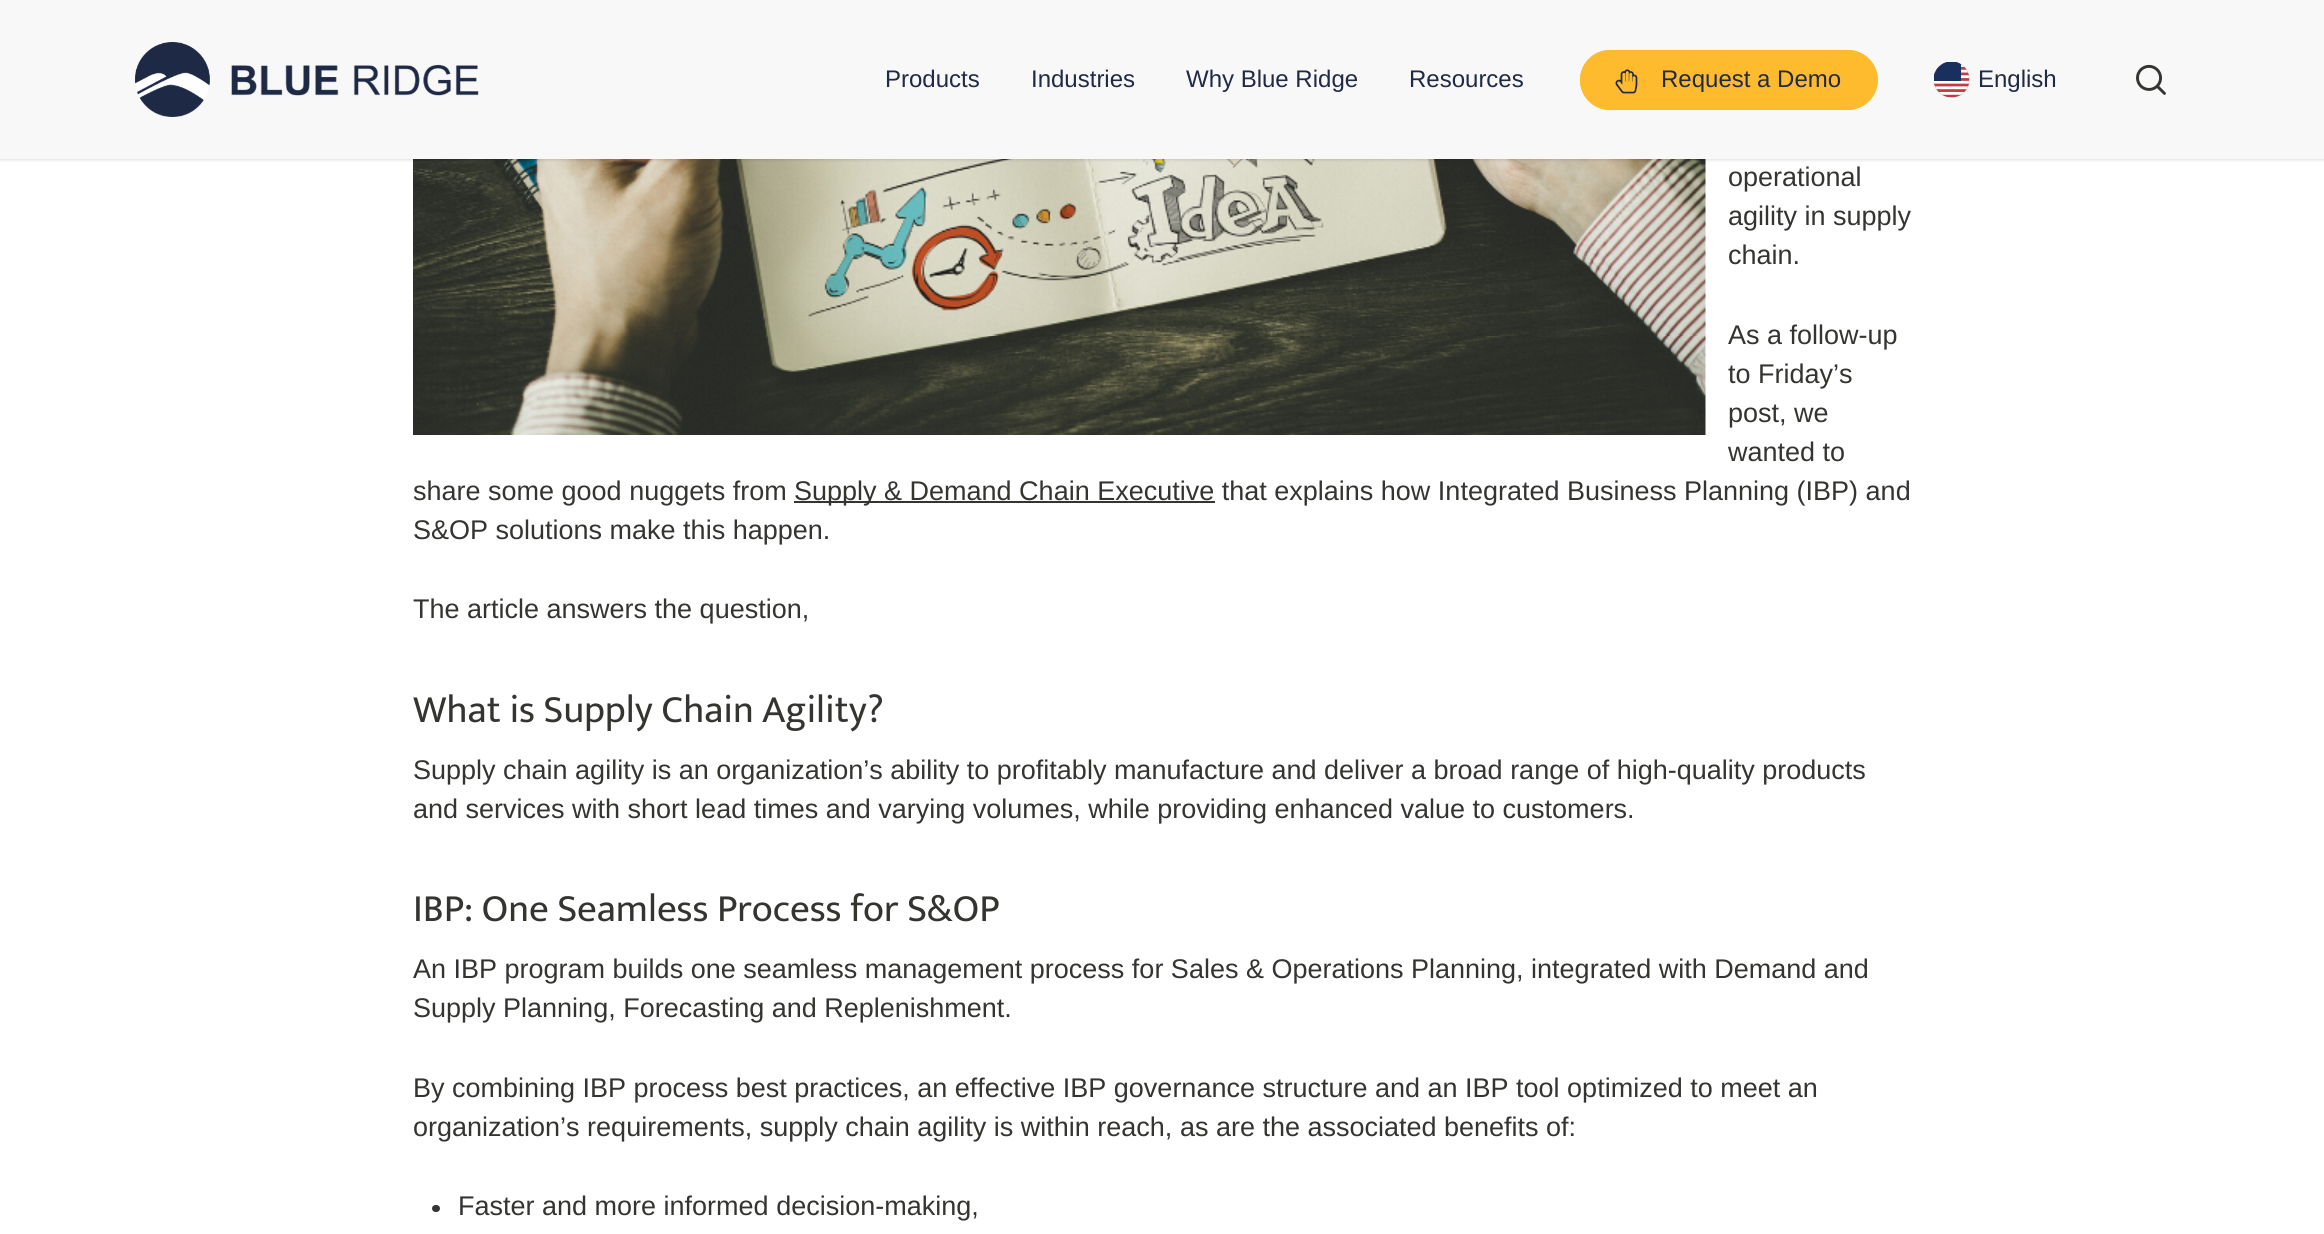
import math
import cairo

surface = cairo.ImageSurface(cairo.Format.RGB24, 2324, 1234)
ctx = cairo.Context(surface)
options = cairo.FontOptions()
options.set_hint_metrics(cairo.HintMetrics.OFF)
options.set_hint_style(cairo.HintStyle.NONE)
ctx.set_font_options(options)
ctx.set_miter_limit(4)


def ink(r, g, b):
    ctx.set_source_rgb(r / 255, g / 255, b / 255)


def write(x, y, s, family, size, color, bold=False, italic=False):
    ctx.select_font_face(family, cairo.FontSlant.ITALIC if italic else cairo.FontSlant.NORMAL, cairo.FontWeight.BOLD if bold else cairo.FontWeight.NORMAL)
    ctx.set_font_size(size)
    ink(*color)
    ctx.move_to(x, y)
    ctx.show_text(s)


def block(x, y, w, h, *color):
    ink(*color)
    ctx.rectangle(x, y, w, h)
    ctx.fill()


def round_path(x, y, w, h, r):
    ctx.new_sub_path()
    for i, (u, v) in enumerate([(x + w - r, y + h - r), (x + r, y + h - r), (x + r, y + r), (x + w - r, y + r)]):
        ctx.arc(u, v, r, i * math.pi / 2, (i + 1) * math.pi / 2)
    ctx.close_path()


def blur_box(x, y, w, h, r, blur, alpha):
    ctx.push_group_with_content(cairo.Content.ALPHA)
    ctx.set_operator(cairo.Operator.SOURCE)
    for i in range(15, -16, -2):
        e = blur * i / 6
        if min(w, h) + 2 * e > 0:
            ctx.set_source_rgba(0, 0, 0, alpha * math.erfc((i - 1) / 8.5) / 2)
            round_path(x - e, y - e, w + 2 * e, h + 2 * e, max(0, min(r + e + blur * .6, min(w, h) / 2 + e)))
            ctx.fill()
    ctx.mask(ctx.pop_group())


def paste(path, x, y, w, h):
    ctx.save()
    ctx.set_source_surface(cairo.ImageSurface.create_from_png(path), x, y)
    ctx.rectangle(x, y, w, h)
    ctx.fill()
    ctx.restore()


s1 = dict(family="Liberation Sans", size=24, color=(32, 41, 69))
s2 = dict(family="Liberation Sans", size=27, color=(52, 53, 49))
s3 = dict(family="Mukta", size=39, color=(52, 53, 49))

ink(255, 255, 255)
ctx.paint()
paste("pic5.png", 413, 159, 1293, 276)
ink(0, 0, 0)
blur_box(0, 0, 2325, 159, 0, 2, 0.22)
block(0, 0, 2324, 159, 248, 248, 248)
paste("pic1.png", 135, 42, 344, 75)
write(885, 87, "Products", **s1)
write(1031, 87, "Industries", **s1)
write(1186, 87, "Why Blue Ridge", **s1)
write(1409, 87, "Resources", **s1)
ink(255, 187, 46)
round_path(1580, 50, 298, 60, 30)
ctx.fill()
round_path(1580, 50, 297, 60, 30)
ctx.fill()
paste("pic2.png", 1615, 69, 23, 25)
write(1661, 87, "Request a Demo", **s1)
paste("pic3.png", 1934, 62, 36, 36)
write(1978, 87, "English", **s1)
paste("pic4.png", 2136, 64, 30, 31)
write(1728, 186, "operational", **s2)
write(1728, 225, "agility in supply", **s2)
write(1728, 264, "chain.", **s2)
write(1728, 344, "As a follow-up", **s2)
write(1728, 383, "to Friday’s", **s2)
write(1728, 422, "post, we", **s2)
write(1728, 461, "wanted to", **s2)
write(413, 500, "share some good nuggets from", **s2)
block(794, 501, 421, 2, 52, 53, 49)
write(794, 500, "Supply & Demand Chain Executive that explains how Integrated Business Planning (IBP) and", **s2)
write(413, 539, "S&OP solutions make this happen.", **s2)
write(413, 618, "The article answers the question,", **s2)
write(413, 722, "What is Supply Chain Agility?", **s3)
write(413, 779, "Supply chain agility is an organization’s ability to profitably manufacture and deliver a broad range of high-quality products", **s2)
write(413, 818, "and services with short lead times and varying volumes, while providing enhanced value to customers.", **s2)
write(413, 921, "IBP: One Seamless Process for S&OP", **s3)
write(413, 978, "An IBP program builds one seamless management process for Sales & Operations Planning, integrated with Demand and", **s2)
write(413, 1017, "Supply Planning, Forecasting and Replenishment.", **s2)
write(413, 1097, "By combining IBP process best practices, an effective IBP governance structure and an IBP tool optimized to meet an", **s2)
write(413, 1136, "organization’s requirements, supply chain agility is within reach, as are the associated benefits of:", **s2)
round_path(432, 1205, 8, 7, 3.5)
ctx.fill()
write(458, 1215, "Faster and more informed decision-making,", **s2)
surface.write_to_png("screenshot.png")
